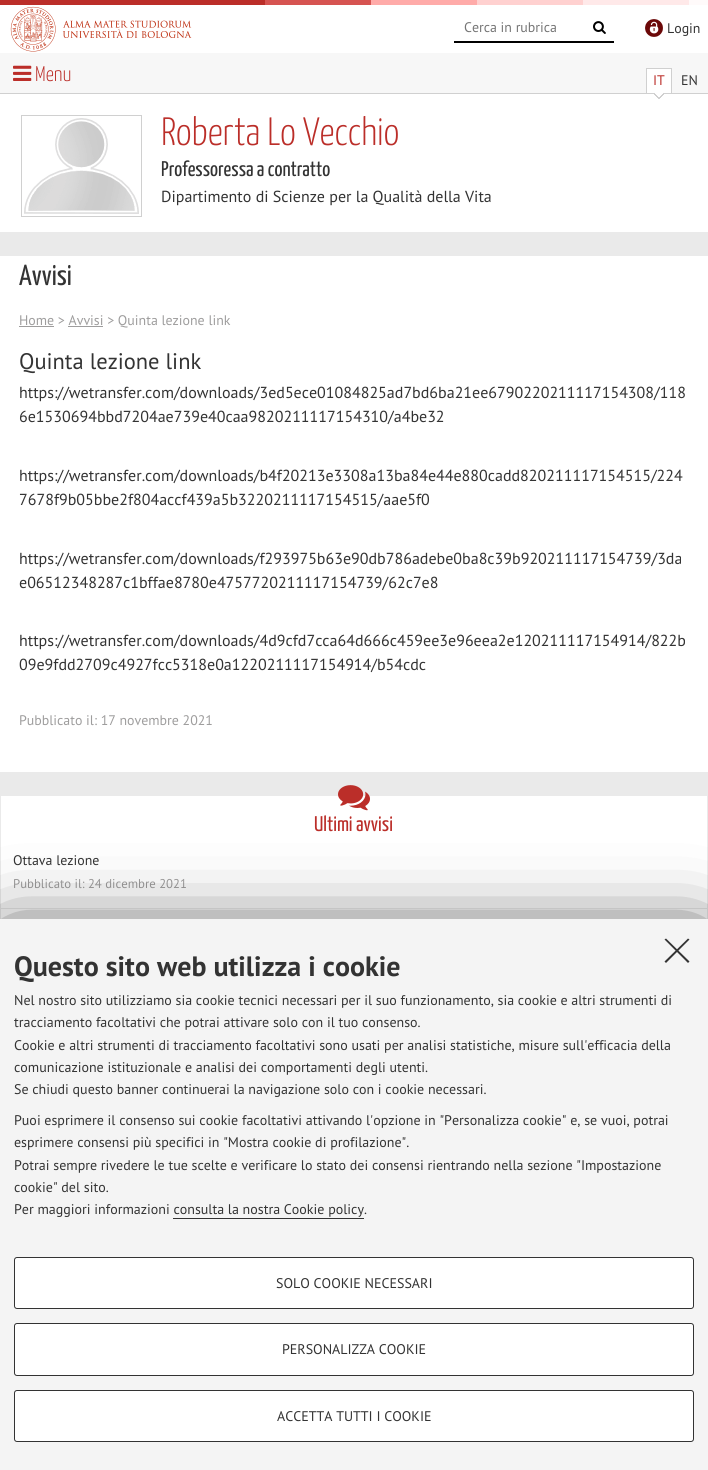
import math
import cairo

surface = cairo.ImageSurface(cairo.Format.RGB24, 708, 1470)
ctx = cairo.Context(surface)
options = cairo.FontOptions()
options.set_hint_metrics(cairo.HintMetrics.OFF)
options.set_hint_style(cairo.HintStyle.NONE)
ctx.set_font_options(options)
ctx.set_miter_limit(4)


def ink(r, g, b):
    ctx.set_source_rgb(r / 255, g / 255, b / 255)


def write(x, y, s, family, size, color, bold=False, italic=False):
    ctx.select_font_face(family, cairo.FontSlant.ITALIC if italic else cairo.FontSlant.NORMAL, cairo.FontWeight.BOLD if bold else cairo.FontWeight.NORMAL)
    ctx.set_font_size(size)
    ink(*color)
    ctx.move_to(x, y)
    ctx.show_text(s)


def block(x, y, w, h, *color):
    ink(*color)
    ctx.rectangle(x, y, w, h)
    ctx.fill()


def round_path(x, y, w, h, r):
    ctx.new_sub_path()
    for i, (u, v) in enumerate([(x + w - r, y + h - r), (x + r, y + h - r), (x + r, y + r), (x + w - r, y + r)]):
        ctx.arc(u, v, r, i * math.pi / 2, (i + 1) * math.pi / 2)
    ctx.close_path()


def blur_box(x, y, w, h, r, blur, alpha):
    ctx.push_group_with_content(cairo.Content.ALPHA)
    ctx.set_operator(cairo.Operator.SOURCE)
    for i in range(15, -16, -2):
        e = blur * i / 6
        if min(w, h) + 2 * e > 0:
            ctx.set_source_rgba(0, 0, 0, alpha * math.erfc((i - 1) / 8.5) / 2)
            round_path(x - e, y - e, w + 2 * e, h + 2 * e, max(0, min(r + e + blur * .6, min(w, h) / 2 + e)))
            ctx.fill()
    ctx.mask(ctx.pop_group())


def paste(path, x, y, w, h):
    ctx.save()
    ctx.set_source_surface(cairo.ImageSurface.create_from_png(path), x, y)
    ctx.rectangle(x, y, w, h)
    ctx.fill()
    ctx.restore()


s1 = dict(family="PT Sans", size=13.9, color=(117, 117, 117))
s2 = dict(family="PT Sans", size=13.9, color=(51, 51, 51))
s3 = dict(family="Yanone Kaffeesatz Light", size=21.25, color=(187, 46, 41))
s4 = dict(family="PT Sans", size=13.9, color=(187, 46, 41))
s5 = dict(family="Yanone Kaffeesatz Light", size=39.5, color=(187, 46, 41))
s6 = dict(family="Yanone Kaffeesatz", size=21.25, color=(51, 51, 51))
s7 = dict(family="PT Sans", size=16, color=(51, 51, 51))
s8 = dict(family="Yanone Kaffeesatz", size=29, color=(51, 51, 51))
s9 = dict(family="PT Sans", size=13.9, color=(158, 157, 157))
s10 = dict(family="PT Sans", size=22.5, color=(51, 51, 51))
s11 = dict(family="Yanone Kaffeesatz", size=21.25, color=(187, 46, 41))
s12 = dict(family="PT Sans", size=12.75, color=(158, 157, 157))
s13 = dict(family="PT Sans", size=28, color=(51, 51, 51), bold=True)
s14 = dict(family="PT Sans", size=14, color=(51, 51, 51))

ink(234, 234, 234)
ctx.paint()
paste("pic1.png", 0, 0, 708, 5)
block(0, 5, 708, 48, 255, 255, 255)
paste("pic2.png", 10, 6, 182, 46)
block(454, 41, 160, 2, 0, 0, 0)
write(464, 32, "Cerca in rubrica", **s1)
paste("pic3.png", 593, 21, 13, 13)
paste("pic4.png", 645, 19, 18, 18)
write(667, 33, "Login", **s2)
block(0, 53, 708, 40, 247, 247, 247)
block(0, 93, 708, 1, 208, 208, 208)
paste("pic5.png", 13, 65, 19, 16)
write(35, 81, "Menu", **s3)
block(647, 69, 24, 24, 255, 255, 255)
block(646, 68, 26, 1, 208, 208, 208)
block(671, 68, 1, 25, 208, 208, 208)
block(646, 68, 1, 25, 208, 208, 208)
write(653, 85, "IT", **s4)
block(0, 94, 708, 138, 255, 255, 255)
paste("pic6.png", 654, 93, 10, 6)
write(681, 85, "EN", **s2)
ctx.rectangle(21.5, 115.5, 120, 101)
ink(208, 208, 208)
ctx.set_line_width(1)
ctx.stroke()
paste("pic7.png", 24, 118, 115, 96)
write(161, 145, "Roberta Lo Vecchio", **s5)
write(161, 176, "Professoressa a contratto", **s6)
write(161, 202, "Dipartimento di Scienze per la Qualità della Vita", **s7)
block(0, 256, 708, 516, 255, 255, 255)
write(19, 285, "Avvisi", **s8)
block(19, 326, 35, 1, 158, 157, 157)
write(19, 325, "Home > Avvisi > Quinta lezione link", **s9)
block(68, 326, 35, 1, 158, 157, 157)
write(19, 369, "Quinta lezione link", **s10)
write(19, 398, "https://wetransfer.com/downloads/3ed5ece01084825ad7bd6ba21ee6790220211117154308/118", **s7)
write(19, 422, "6e1530694bbd7204ae739e40caa9820211117154310/a4be32", **s7)
write(19, 481, "https://wetransfer.com/downloads/b4f20213e3308a13ba84e44e880cadd820211117154515/224", **s7)
write(19, 505, "7678f9b05bbe2f804accf439a5b3220211117154515/aae5f0", **s7)
write(19, 564, "https://wetransfer.com/downloads/f293975b63e90db786adebe0ba8c39b920211117154739/3da", **s7)
write(19, 588, "e06512348287c1bffae8780e4757720211117154739/62c7e8", **s7)
write(19, 646, "https://wetransfer.com/downloads/4d9cfd7cca64d666c459ee3e96eea2e120211117154914/822b", **s7)
write(19, 670, "09e9fdd2709c4927fcc5318e0a1220211117154914/b54cdc", **s7)
write(19, 725, "Pubblicato il: 17 novembre 2021", **s9)
block(1, 796, 706, 123, 255, 255, 255)
paste("pic8.png", 338, 785, 32, 26)
write(314, 831, "Ultimi avvisi", **s11)
block(1, 908, 706, 1, 234, 234, 234)
write(13, 865, "Ottava lezione", **s2)
write(13, 888, "Pubblicato il: 24 dicembre 2021", **s12)
ink(0, 0, 0)
blur_box(8, 943, 692, 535, 0, 40, 1)
block(0, 919, 708, 551, 244, 244, 244)
ink(51, 51, 51)
ctx.new_path()
ctx.move_to(688, 938.5)
ctx.line_to(689.5, 939.5)
ctx.line_to(666, 963)
ctx.line_to(664.5, 961.5)
ctx.close_path()
ctx.fill()
ctx.new_path()
ctx.move_to(664.5, 939.5)
ctx.line_to(666, 938.5)
ctx.line_to(689.5, 961.5)
ctx.line_to(688, 963)
ctx.close_path()
ctx.fill()
write(14, 976, "Questo sito web utilizza i cookie", **s13)
write(14, 1005, "Nel nostro sito utilizziamo sia cookie tecnici necessari per il suo funzionamento, sia cookie e altri strumenti di", **s14)
write(14, 1027, "tracciamento facoltativi che potrai attivare solo con il tuo consenso.", **s14)
write(14, 1050, "Cookie e altri strumenti di tracciamento facoltativi sono usati per analisi statistiche, misure sull'efficacia della", **s14)
write(14, 1072, "comunicazione istituzionale e analisi dei comportamenti degli utenti.", **s14)
write(14, 1094, "Se chiudi questo banner continuerai la navigazione solo con i cookie necessari.", **s14)
write(14, 1125, "Puoi esprimere il consenso sui cookie facoltativi attivando l'opzione in \"Personalizza cookie\" e, se vuoi, potrai", **s14)
write(14, 1147, "esprimere consensi più specifici in \"Mostra cookie di profilazione\".", **s14)
write(14, 1170, "Potrai sempre rivedere le tue scelte e verificare lo stato dei consensi rientrando nella sezione \"Impostazione", **s14)
write(14, 1192, "cookie\" del sito.", **s14)
write(14, 1214, "Per maggiori informazioni consulta la nostra Cookie policy.", **s14)
block(173, 1218, 191, 1, 51, 51, 51)
ink(255, 255, 255)
round_path(14.5, 1257.5, 679, 51, 2.5)
ctx.fill_preserve()
ink(51, 51, 51)
ctx.stroke()
write(276, 1288, "SOLO COOKIE NECESSARI", **s14)
ink(255, 255, 255)
round_path(14.5, 1323.5, 679, 52, 2.5)
ctx.fill_preserve()
ink(51, 51, 51)
ctx.stroke()
write(282, 1354, "PERSONALIZZA COOKIE", **s14)
ink(255, 255, 255)
round_path(14.5, 1390.5, 679, 51, 2.5)
ctx.fill_preserve()
ink(51, 51, 51)
ctx.stroke()
write(277, 1421, "ACCETTA TUTTI I COOKIE", **s14)
surface.write_to_png("screenshot.png")
